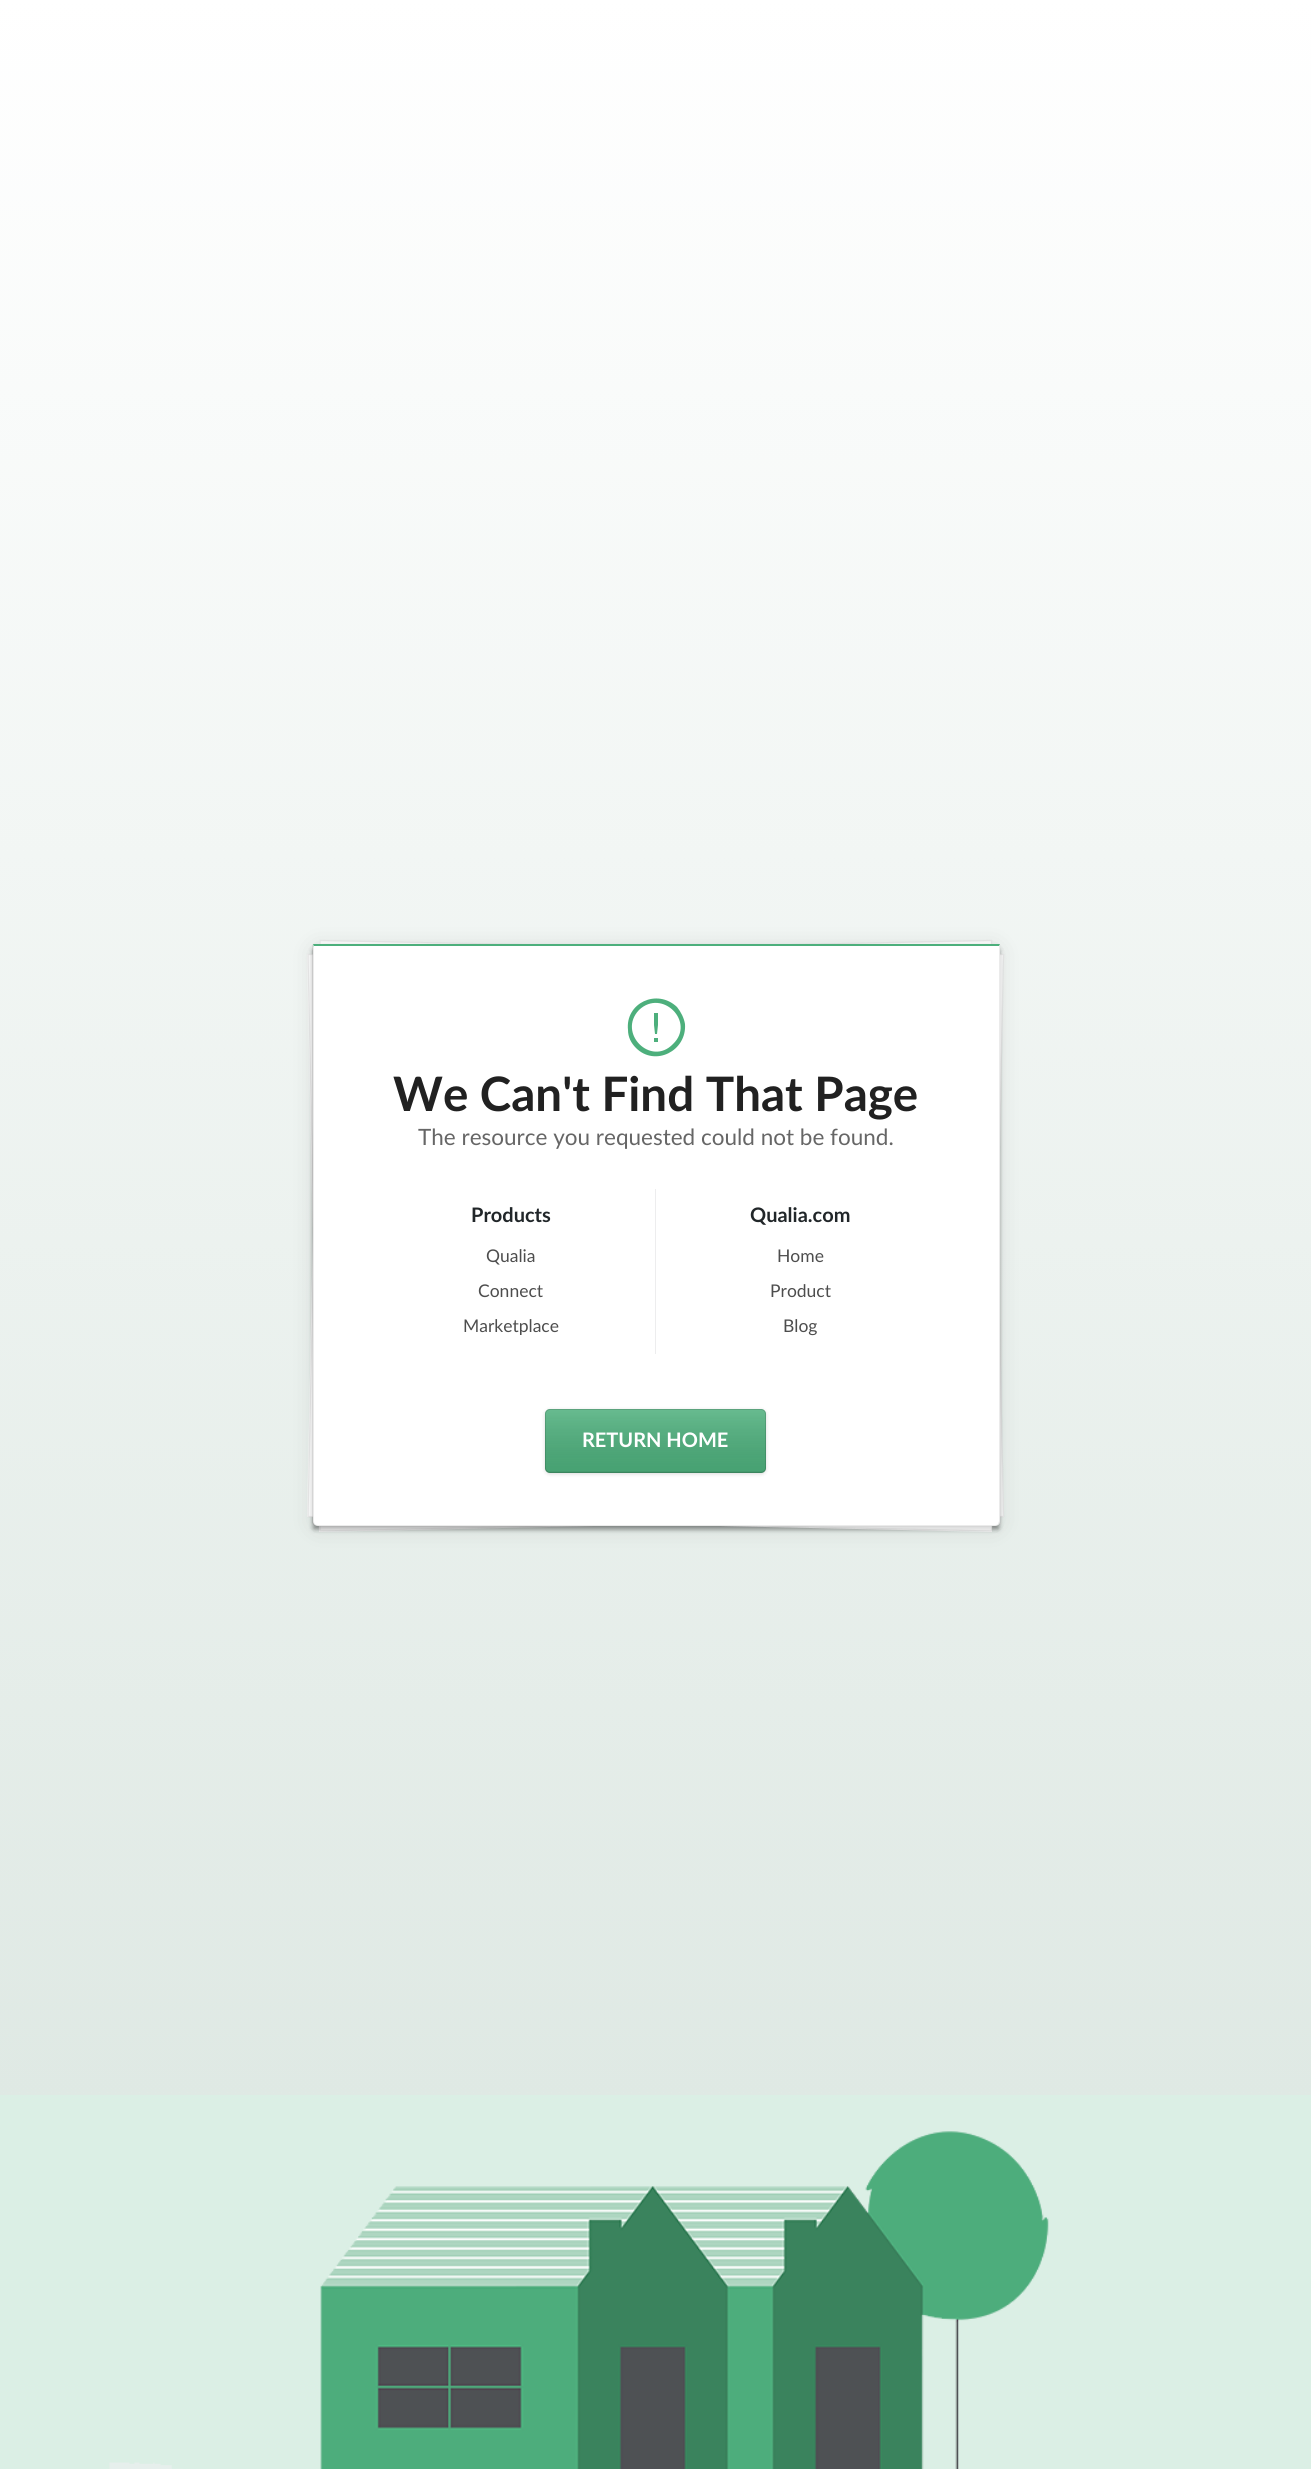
import math
import cairo

surface = cairo.ImageSurface(cairo.Format.RGB24, 1311, 2469)
ctx = cairo.Context(surface)
options = cairo.FontOptions()
options.set_hint_metrics(cairo.HintMetrics.OFF)
options.set_hint_style(cairo.HintStyle.NONE)
ctx.set_font_options(options)
ctx.set_miter_limit(4)


def ink(r, g, b):
    ctx.set_source_rgb(r / 255, g / 255, b / 255)


def write(x, y, s, family, size, color, bold=False, italic=False):
    ctx.select_font_face(family, cairo.FontSlant.ITALIC if italic else cairo.FontSlant.NORMAL, cairo.FontWeight.BOLD if bold else cairo.FontWeight.NORMAL)
    ctx.set_font_size(size)
    ink(*color)
    ctx.move_to(x, y)
    ctx.show_text(s)


def round_path(x, y, w, h, r):
    ctx.new_sub_path()
    for i, (u, v) in enumerate([(x + w - r, y + h - r), (x + r, y + h - r), (x + r, y + r), (x + w - r, y + r)]):
        ctx.arc(u, v, r, i * math.pi / 2, (i + 1) * math.pi / 2)
    ctx.close_path()


def blur_box(x, y, w, h, r, blur, alpha):
    ctx.push_group_with_content(cairo.Content.ALPHA)
    ctx.set_operator(cairo.Operator.SOURCE)
    for i in range(15, -16, -2):
        e = blur * i / 6
        if min(w, h) + 2 * e > 0:
            ctx.set_source_rgba(0, 0, 0, alpha * math.erfc((i - 1) / 8.5) / 2)
            round_path(x - e, y - e, w + 2 * e, h + 2 * e, max(0, min(r + e + blur * .6, min(w, h) / 2 + e)))
            ctx.fill()
    ctx.mask(ctx.pop_group())


def paste(path, x, y, w, h):
    ctx.save()
    ctx.set_source_surface(cairo.ImageSurface.create_from_png(path), x, y)
    ctx.rectangle(x, y, w, h)
    ctx.fill()
    ctx.restore()


s1 = dict(family="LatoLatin", size=47.5, color=(33, 33, 33), bold=True)
s2 = dict(family="LatoLatin", size=22.5, color=(102, 102, 102))
s3 = dict(family="LatoLatin", size=20, color=(33, 38, 41), bold=True)
s4 = dict(family="LatoLatin", size=17.5, color=(77, 77, 77))
s5 = dict(family="LatoLatin", size=20, color=(255, 255, 255), bold=True)

ink(255, 255, 255)
ctx.paint()
paste("pic1.png", 0, 0, 1311, 2469)
ink(0, 0, 0)
blur_box(313, 950, 685, 579, 0, 2.5, 0.2)
ink(255, 255, 255)
ctx.new_path()
ctx.move_to(307, 954)
ctx.line_to(992, 940)
ctx.line_to(1004, 1517)
ctx.line_to(319, 1532)
ctx.close_path()
ctx.fill()
ctx.new_path()
ctx.move_to(308, 954.5)
ctx.line_to(991.5, 940.5)
ctx.line_to(1003.5, 1516.5)
ctx.line_to(320, 1531)
ctx.close_path()
ctx.set_source_rgba(0.133, 0.141, 0.149, 0.09)
ctx.set_line_width(1.3)
ctx.stroke()
ink(0, 0, 0)
blur_box(314, 950, 685, 579, 0, 2.5, 0.2)
ink(255, 255, 255)
ctx.new_path()
ctx.move_to(319, 940)
ctx.line_to(1004, 954)
ctx.line_to(992, 1532)
ctx.line_to(307, 1517)
ctx.close_path()
ctx.fill()
ctx.new_path()
ctx.move_to(320, 940.5)
ctx.line_to(1003.5, 954.5)
ctx.line_to(991.5, 1531)
ctx.line_to(308, 1516.5)
ctx.close_path()
ctx.set_source_rgba(0.133, 0.141, 0.149, 0.09)
ctx.stroke()
ink(34, 36, 38)
blur_box(316, 950, 680, 575, 1, 12.5, 0.15)
blur_box(313, 946, 687, 583, 5, 2.5, 0.14)
ink(255, 255, 255)
ctx.new_path()
ctx.move_to(313, 944)
ctx.line_to(1000, 944)
ctx.line_to(1000, 1521)
ctx.curve_to(1000, 1524, 998, 1526, 995, 1526)
ctx.line_to(318, 1526)
ctx.curve_to(315, 1526, 313, 1524, 313, 1521)
ctx.close_path()
ctx.fill()
ink(77, 175, 124)
ctx.new_path()
ctx.move_to(314, 946)
ctx.line_to(999, 946)
ctx.line_to(1000, 944)
ctx.line_to(313, 944)
ctx.line_to(314, 947)
ctx.close_path()
ctx.fill()
ctx.set_source_rgba(0.133, 0.141, 0.149, 0.09)
ctx.new_path()
ctx.move_to(1000, 1521)
ctx.line_to(1000, 944)
ctx.line_to(999, 946)
ctx.line_to(999, 1521)
ctx.line_to(998, 1524)
ctx.line_to(998, 1525)
ctx.curve_to(999, 1524, 1000, 1523, 1000, 1521)
ctx.close_path()
ctx.fill()
ctx.new_path()
ctx.move_to(998, 1525)
ctx.curve_to(998, 1526, 996, 1526, 995, 1526)
ctx.line_to(318, 1526)
ctx.curve_to(317, 1526, 315, 1526, 314, 1525)
ctx.line_to(315, 1524)
ctx.curve_to(316, 1525, 317, 1525, 318, 1525)
ctx.line_to(995, 1525)
ctx.curve_to(996, 1525, 997, 1525, 998, 1524)
ctx.close_path()
ctx.fill()
ctx.new_path()
ctx.move_to(312, 944)
ctx.line_to(314, 947)
ctx.line_to(314, 1521)
ctx.curve_to(314, 1522, 314, 1523, 315, 1524)
ctx.line_to(314, 1525)
ctx.line_to(312, 1523)
ctx.close_path()
ctx.fill()
ink(77, 175, 124)
ctx.new_path()
ctx.move_to(677, 1007)
ctx.curve_to(657, 988, 625, 1003, 628, 1030)
ctx.curve_to(628, 1037, 631, 1043, 636, 1048)
ctx.curve_to(655, 1067, 687, 1051, 685, 1024)
ctx.curve_to(684, 1018, 681, 1012, 677, 1007)
ctx.close_path()
ctx.move_to(673, 1044)
ctx.curve_to(651, 1067, 617, 1033, 639, 1010)
ctx.curve_to(662, 988, 696, 1022, 673, 1044)
ctx.close_path()
ctx.move_to(654, 1025)
ctx.line_to(655, 1034)
ctx.line_to(657, 1034)
ctx.line_to(658, 1025)
ctx.line_to(658, 1013)
ctx.line_to(654, 1013)
ctx.close_path()
ctx.move_to(654, 1038)
ctx.line_to(658, 1038)
ctx.line_to(658, 1042)
ctx.line_to(654, 1042)
ctx.close_path()
ctx.fill()
write(393, 1111, "We Can't Find That Page", **s1)
write(418, 1145, "The resource you requested could not be found.", **s2)
write(471, 1222, "Products", **s3)
write(486, 1262, "Qualia", **s4)
write(478, 1297, "Connect", **s4)
write(463, 1332, "Marketplace", **s4)
ink(237, 237, 238)
ctx.new_path()
ctx.move_to(655, 1189)
ctx.line_to(655, 1354)
ctx.line_to(945, 1354)
ctx.line_to(656, 1354)
ctx.line_to(656, 1189)
ctx.close_path()
ctx.fill()
write(750, 1222, "Qualia.com", **s3)
write(777, 1262, "Home", **s4)
write(770, 1297, "Product", **s4)
write(783, 1332, "Blog", **s4)
ink(0, 0, 0)
blur_box(545, 1410, 221, 64, 5, 2, 0.15)
ink(77, 175, 124)
round_path(545, 1409, 221, 64, 5)
ctx.fill()
gradient = cairo.LinearGradient(656, 1409, 656, 1473)
gradient.add_color_stop_rgba(0, 1, 1, 1, 0.15)
gradient.add_color_stop_rgba(1, 0, 0, 0, 0.08)
ctx.set_source(gradient)
round_path(545, 1409, 221, 64, 5)
ctx.fill()
round_path(545.5, 1409.5, 220, 63, 4.5)
ctx.set_source_rgba(0, 0, 0, 0.13)
ctx.set_line_width(1)
ctx.stroke()
ctx.set_source_rgba(0, 0, 0, 0.05)
ctx.new_path()
ctx.move_to(545, 1466)
ctx.line_to(545, 1468)
ctx.curve_to(545, 1471, 547, 1473, 550, 1473)
ctx.line_to(761, 1473)
ctx.curve_to(764, 1473, 766, 1471, 766, 1468)
ctx.line_to(766, 1466)
ctx.curve_to(766, 1469, 764, 1471, 761, 1471)
ctx.line_to(550, 1471)
ctx.curve_to(547, 1471, 545, 1469, 545, 1466)
ctx.close_path()
ctx.fill()
write(582, 1447, "RETURN HOME", **s5)
surface.write_to_png("screenshot.png")
